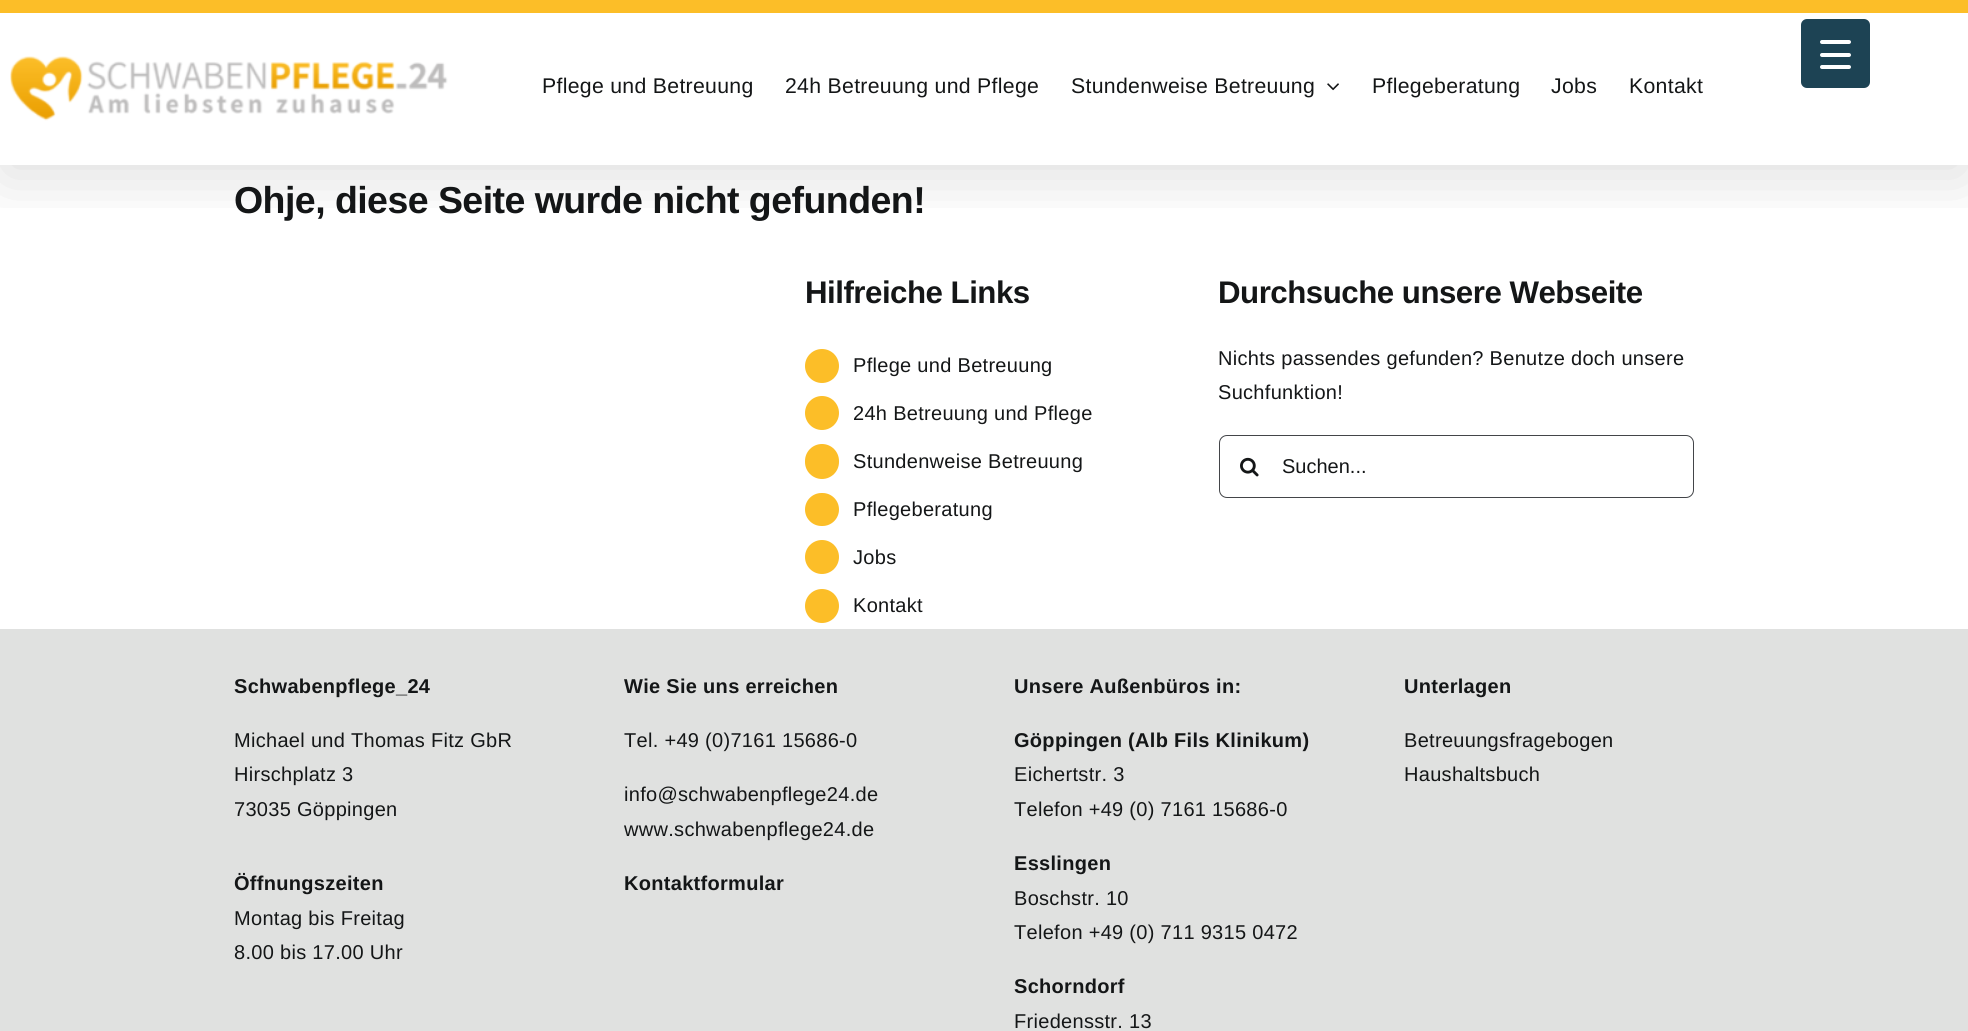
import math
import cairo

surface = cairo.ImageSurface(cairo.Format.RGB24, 1968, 1031)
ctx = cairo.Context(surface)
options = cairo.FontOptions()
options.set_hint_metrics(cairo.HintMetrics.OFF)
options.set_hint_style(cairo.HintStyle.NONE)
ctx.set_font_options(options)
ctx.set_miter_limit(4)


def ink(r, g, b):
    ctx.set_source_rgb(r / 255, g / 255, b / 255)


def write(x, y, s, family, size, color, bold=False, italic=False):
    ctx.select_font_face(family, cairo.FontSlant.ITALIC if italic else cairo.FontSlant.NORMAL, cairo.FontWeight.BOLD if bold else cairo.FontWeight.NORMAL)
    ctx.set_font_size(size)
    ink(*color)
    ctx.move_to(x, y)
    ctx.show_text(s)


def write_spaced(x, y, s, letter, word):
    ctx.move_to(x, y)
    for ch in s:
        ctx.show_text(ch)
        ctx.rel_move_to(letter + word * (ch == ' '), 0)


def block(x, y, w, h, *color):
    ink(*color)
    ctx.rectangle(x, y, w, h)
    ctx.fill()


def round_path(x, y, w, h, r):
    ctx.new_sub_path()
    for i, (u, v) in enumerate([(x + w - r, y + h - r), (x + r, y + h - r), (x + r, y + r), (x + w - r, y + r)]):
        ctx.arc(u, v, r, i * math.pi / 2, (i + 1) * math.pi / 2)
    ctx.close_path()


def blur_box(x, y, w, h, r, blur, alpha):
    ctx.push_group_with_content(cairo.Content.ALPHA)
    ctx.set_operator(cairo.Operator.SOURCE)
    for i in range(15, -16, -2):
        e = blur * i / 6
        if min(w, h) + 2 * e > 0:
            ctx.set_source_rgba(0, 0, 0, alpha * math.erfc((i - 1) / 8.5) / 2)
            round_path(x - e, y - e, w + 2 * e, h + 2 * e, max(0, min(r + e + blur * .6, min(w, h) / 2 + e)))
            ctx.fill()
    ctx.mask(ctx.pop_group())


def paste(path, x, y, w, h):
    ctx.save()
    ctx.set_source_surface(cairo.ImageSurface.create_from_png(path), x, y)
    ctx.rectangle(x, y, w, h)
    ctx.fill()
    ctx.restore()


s1 = dict(family="Liberation Sans", size=20, color=(20, 22, 23))

ink(255, 255, 255)
ctx.paint()
ctx.save()
ctx.rectangle(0, 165, 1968, 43)
ctx.clip()
ink(0, 0, 0)
blur_box(3, -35, 1963, 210, 0, 31, 0.14)
ctx.restore()
ink(29, 67, 84)
round_path(1801, 19, 69, 69, 6)
ctx.fill()
ink(255, 255, 255)
round_path(1820, 53, 31, 4, 2)
ctx.fill()
round_path(1820, 40, 31, 4, 2)
ctx.fill()
round_path(1820, 65, 31, 4, 2)
ctx.fill()
block(0, 0, 1968, 13, 252, 190, 40)
paste("pic1.png", 10, 56, 438, 65)
ctx.select_font_face("Liberation Sans")
ctx.set_font_size(21.25)
ink(20, 22, 23)
write_spaced(542, 93, "Pflege und Betreuung", 0.3, 0)
write_spaced(785, 93, "24h Betreuung und Pflege", 0.3, 0)
write_spaced(1071, 93, "Stundenweise Betreuung", 0.3, 0)
paste("pic2.png", 1327, 83, 12, 8)
write_spaced(1372, 93, "Pflegeberatung", 0.3, 0)
write_spaced(1551, 93, "Jobs", 0.3, 0)
write_spaced(1629, 93, "Kontakt", 0.3, 0)
ctx.select_font_face("Liberation Sans", cairo.FontSlant.NORMAL, cairo.FontWeight.BOLD)
ctx.set_font_size(37.5)
write_spaced(234, 213, "Ohje, diese Seite wurde nicht gefunden!", -0.55, 0)
ctx.set_font_size(31.25)
write_spaced(805, 303, "Hilfreiche Links", -0.5, 0)
ink(252, 190, 40)
ctx.new_path()
ctx.arc(822, 366, 17, 0, 2 * math.pi)
ctx.fill()
ctx.select_font_face("Liberation Sans")
ctx.set_font_size(20)
ink(20, 22, 23)
write_spaced(853, 372, "Pflege und Betreuung", 0.3, 0)
ink(252, 190, 40)
ctx.new_path()
ctx.arc(822, 413, 17, 0, 2 * math.pi)
ctx.fill()
ink(20, 22, 23)
write_spaced(853, 420, "24h Betreuung und Pflege", 0.3, 0)
ink(252, 190, 40)
round_path(805, 444, 34, 35, 17)
ctx.fill()
ink(20, 22, 23)
write_spaced(853, 468, "Stundenweise Betreuung", 0.3, 0)
ink(252, 190, 40)
round_path(805, 493, 34, 33, 16.5)
ctx.fill()
ink(20, 22, 23)
write_spaced(853, 516, "Pflegeberatung", 0.3, 0)
ink(252, 190, 40)
ctx.new_path()
ctx.arc(822, 557, 17, 0, 2 * math.pi)
ctx.fill()
ink(20, 22, 23)
write_spaced(853, 564, "Jobs", 0.3, 0)
ink(252, 190, 40)
ctx.new_path()
ctx.arc(822, 606, 17, 0, 2 * math.pi)
ctx.fill()
ink(20, 22, 23)
write_spaced(853, 612, "Kontakt", 0.3, 0)
ctx.select_font_face("Liberation Sans", cairo.FontSlant.NORMAL, cairo.FontWeight.BOLD)
ctx.set_font_size(31.25)
write_spaced(1218, 303, "Durchsuche unsere Webseite", -0.5, 0)
ctx.select_font_face("Liberation Sans")
ctx.set_font_size(20)
write_spaced(1218, 365, "Nichts passendes gefunden? Benutze doch unsere", 0.3, 0)
write_spaced(1218, 399, "Suchfunktion!", 0.3, 0)
round_path(1219.5, 435.5, 474, 62, 7.5)
ink(67, 69, 73)
ctx.set_line_width(1)
ctx.stroke()
paste("pic3.png", 1240, 457, 19, 20)
write(1282, 473, "Suchen...", **s1)
block(0, 629, 1968, 402, 224, 225, 224)
ctx.select_font_face("Liberation Sans", cairo.FontSlant.NORMAL, cairo.FontWeight.BOLD)
ink(20, 22, 23)
write_spaced(234, 693, "Schwabenpflege_24", 0.3, 0)
ctx.select_font_face("Liberation Sans")
write_spaced(234, 747, "Michael und Thomas Fitz GbR", 0.3, 0)
write_spaced(234, 781, "Hirschplatz 3", 0.3, 0)
write_spaced(234, 816, "73035 Göppingen", 0.3, 0)
ctx.select_font_face("Liberation Sans", cairo.FontSlant.NORMAL, cairo.FontWeight.BOLD)
write_spaced(234, 890, "Öffnungszeiten", 0.3, 0)
ctx.select_font_face("Liberation Sans")
write_spaced(234, 925, "Montag bis Freitag", 0.3, 0)
write_spaced(234, 959, "8.00 bis 17.00 Uhr", 0.3, 0)
ctx.select_font_face("Liberation Sans", cairo.FontSlant.NORMAL, cairo.FontWeight.BOLD)
write_spaced(624, 693, "Wie Sie uns erreichen", 0.3, 0)
ctx.select_font_face("Liberation Sans")
write_spaced(624, 747, "Tel. +49 (0)7161 15686-0", 0.3, 0)
write_spaced(624, 801, "info@schwabenpflege24.de", 0.3, 0)
write_spaced(624, 836, "www.schwabenpflege24.de", 0.3, 0)
ctx.select_font_face("Liberation Sans", cairo.FontSlant.NORMAL, cairo.FontWeight.BOLD)
write_spaced(624, 890, "Kontaktformular", 0.3, 0)
write_spaced(1014, 693, "Unsere Außenbüros in:", 0.3, 0)
write_spaced(1014, 747, "Göppingen (Alb Fils Klinikum)", 0.3, 0)
ctx.select_font_face("Liberation Sans")
write_spaced(1014, 781, "Eichertstr. 3", 0.3, 0)
write_spaced(1014, 816, "Telefon +49 (0) 7161 15686-0", 0.3, 0)
ctx.select_font_face("Liberation Sans", cairo.FontSlant.NORMAL, cairo.FontWeight.BOLD)
write_spaced(1014, 870, "Esslingen", 0.3, 0)
ctx.select_font_face("Liberation Sans")
write_spaced(1014, 905, "Boschstr. 10", 0.3, 0)
write_spaced(1014, 939, "Telefon +49 (0) 711 9315 0472", 0.3, 0)
ctx.select_font_face("Liberation Sans", cairo.FontSlant.NORMAL, cairo.FontWeight.BOLD)
write_spaced(1014, 993, "Schorndorf", 0.3, 0)
ctx.select_font_face("Liberation Sans")
write_spaced(1014, 1028, "Friedensstr. 13", 0.3, 0)
ctx.select_font_face("Liberation Sans", cairo.FontSlant.NORMAL, cairo.FontWeight.BOLD)
write_spaced(1404, 693, "Unterlagen", 0.3, 0)
ctx.select_font_face("Liberation Sans")
write_spaced(1404, 747, "Betreuungsfragebogen", 0.3, 0)
write_spaced(1404, 781, "Haushaltsbuch", 0.3, 0)
surface.write_to_png("screenshot.png")
